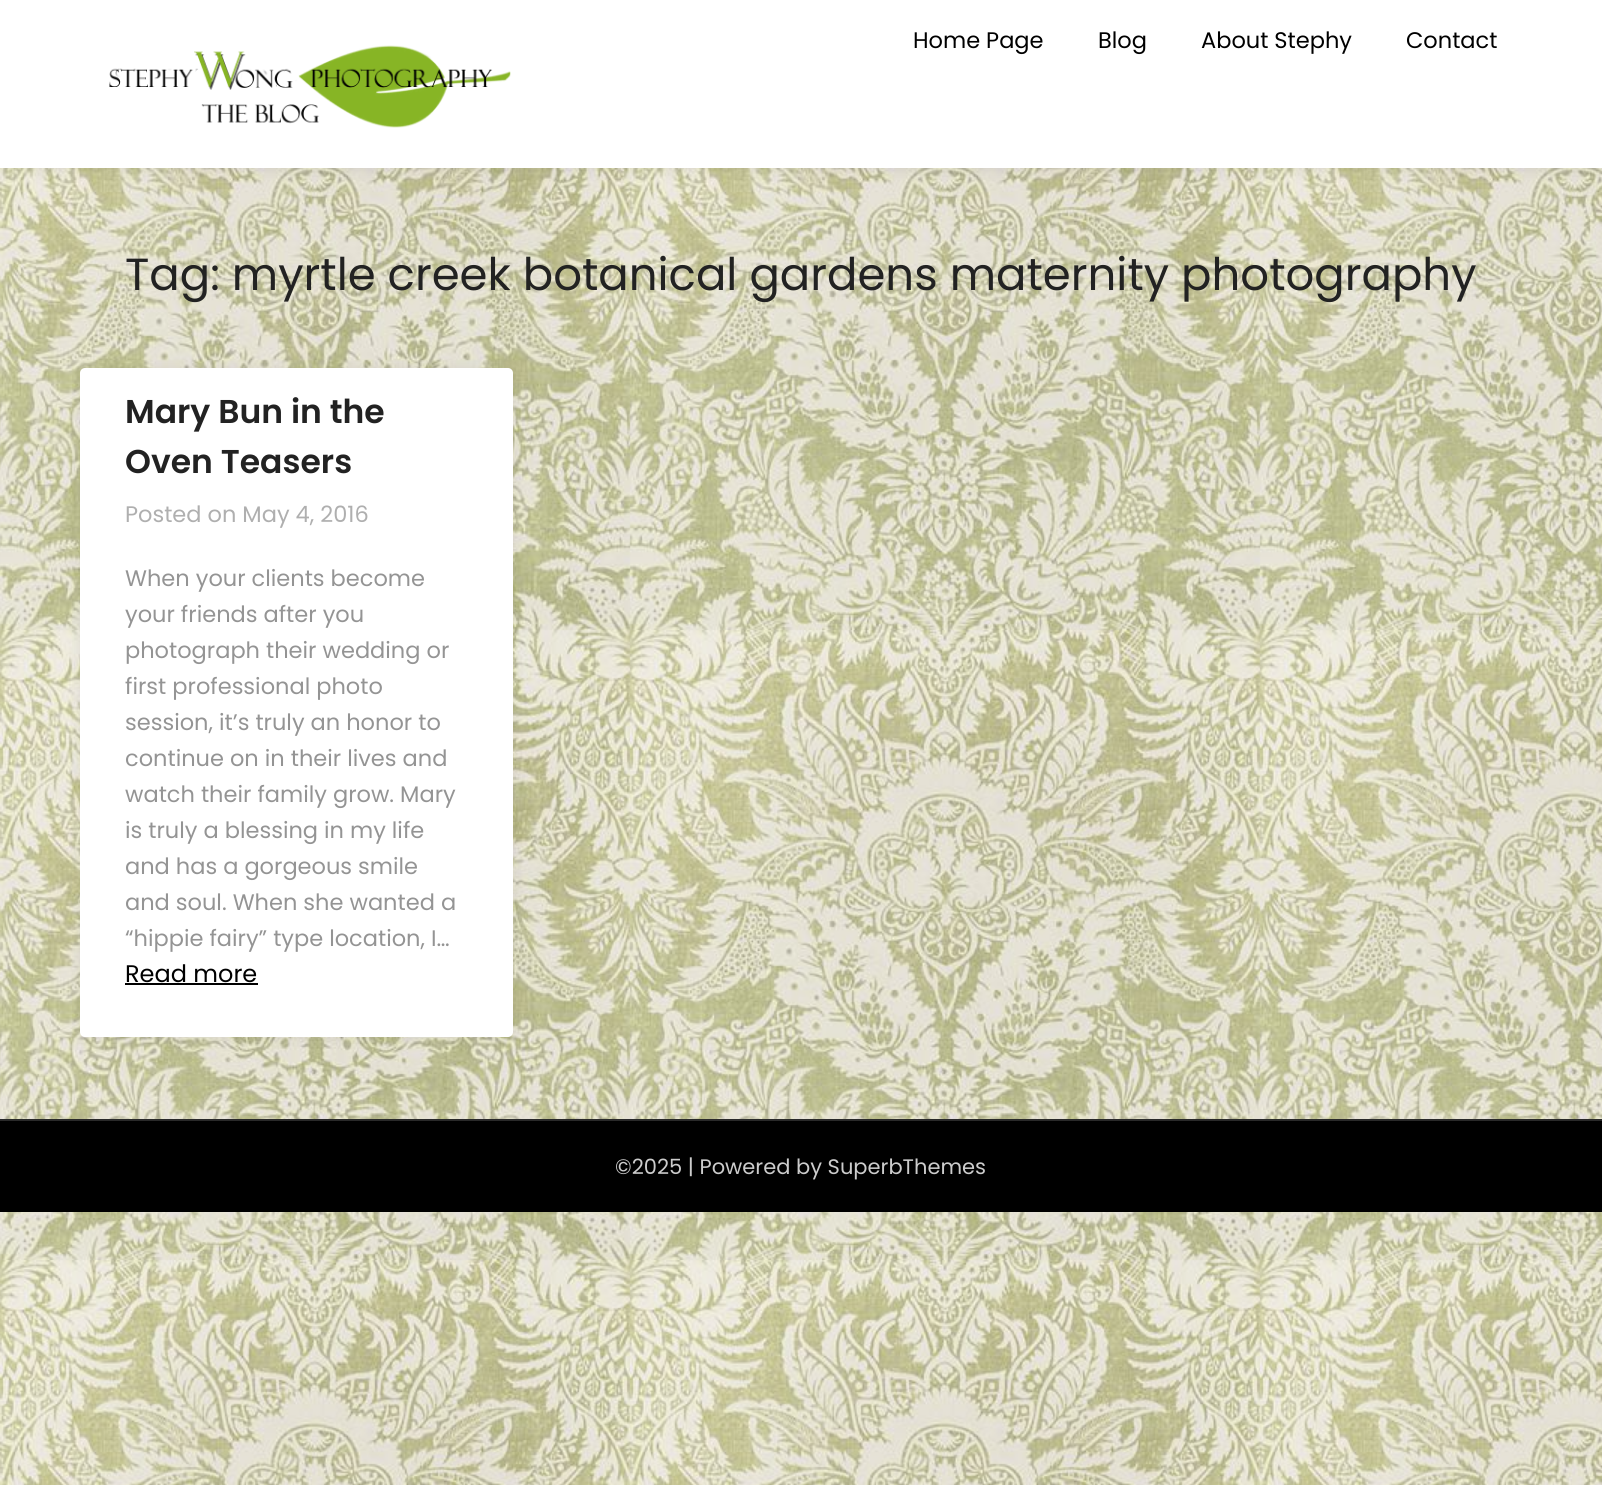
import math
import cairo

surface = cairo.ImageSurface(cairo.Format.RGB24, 1602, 1485)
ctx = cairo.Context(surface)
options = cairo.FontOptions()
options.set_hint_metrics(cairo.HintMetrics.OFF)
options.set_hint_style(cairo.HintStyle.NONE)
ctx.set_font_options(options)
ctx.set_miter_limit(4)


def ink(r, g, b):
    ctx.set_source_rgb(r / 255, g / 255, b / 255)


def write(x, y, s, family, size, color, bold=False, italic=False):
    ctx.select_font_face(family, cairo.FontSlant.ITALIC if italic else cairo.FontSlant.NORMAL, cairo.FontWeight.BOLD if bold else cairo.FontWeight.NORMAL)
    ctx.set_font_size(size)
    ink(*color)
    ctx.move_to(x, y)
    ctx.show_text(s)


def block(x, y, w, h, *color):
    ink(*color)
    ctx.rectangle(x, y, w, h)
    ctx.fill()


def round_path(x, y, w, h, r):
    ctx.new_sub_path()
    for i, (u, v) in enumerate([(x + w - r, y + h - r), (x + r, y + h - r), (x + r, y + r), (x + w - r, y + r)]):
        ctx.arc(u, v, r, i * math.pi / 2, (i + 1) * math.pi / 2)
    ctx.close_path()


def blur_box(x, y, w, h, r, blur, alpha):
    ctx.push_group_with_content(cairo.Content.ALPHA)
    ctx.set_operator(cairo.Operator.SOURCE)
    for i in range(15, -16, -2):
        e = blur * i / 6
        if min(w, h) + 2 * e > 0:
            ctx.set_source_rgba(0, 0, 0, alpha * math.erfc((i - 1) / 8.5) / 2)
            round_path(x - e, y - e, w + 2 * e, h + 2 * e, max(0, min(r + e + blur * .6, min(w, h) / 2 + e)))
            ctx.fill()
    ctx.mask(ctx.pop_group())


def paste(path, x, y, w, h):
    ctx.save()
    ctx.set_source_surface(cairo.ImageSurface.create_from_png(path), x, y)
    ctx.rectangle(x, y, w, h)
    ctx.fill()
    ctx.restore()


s1 = dict(family="Poppins", size=22.5, color=(0, 0, 0))
s2 = dict(family="Poppins", size=45, color=(34, 34, 34))
s3 = dict(family="Poppins SemiBold", size=33, color=(34, 34, 34))
s4 = dict(family="Poppins", size=22.5, color=(175, 175, 175))
s5 = dict(family="Poppins", size=22.5, color=(148, 148, 148))
s6 = dict(family="Poppins", size=24, color=(0, 0, 0))
s7 = dict(family="Poppins", size=21, color=(204, 204, 204))

ink(255, 255, 255)
ctx.paint()
paste("pic1.png", 0, 168, 1602, 1317)
ink(0, 0, 0)
blur_box(0, 2, 1602, 168, 0, 7, 0.08)
block(0, 0, 1602, 168, 255, 255, 255)
paste("pic2.png", 109, 45, 402, 83)
write(913, 48, "Home Page", **s1)
write(1098, 48, "Blog", **s1)
write(1201, 48, "About Stephy", **s1)
write(1406, 48, "Contact", **s1)
write(125, 290, "Tag: myrtle creek botanical gardens maternity photography", **s2)
ink(0, 0, 0)
blur_box(80, 369, 433, 669, 5, 7, 0.08)
ink(255, 255, 255)
round_path(80, 368, 433, 669, 5)
ctx.fill()
write(125, 423, "Mary Bun in the", **s3)
write(125, 473, "Oven Teasers", **s3)
write(125, 522, "Posted on May 4, 2016", **s4)
write(125, 586, "When your clients become", **s5)
write(125, 622, "your friends after you", **s5)
write(125, 658, "photograph their wedding or", **s5)
write(125, 694, "first professional photo", **s5)
write(125, 730, "session, it’s truly an honor to", **s5)
write(125, 766, "continue on in their lives and", **s5)
write(125, 802, "watch their family grow. Mary", **s5)
write(125, 838, "is truly a blessing in my life", **s5)
write(125, 874, "and has a gorgeous smile", **s5)
write(125, 910, "and soul. When she wanted a", **s5)
write(125, 946, "“hippie fairy” type location, I…", **s5)
write(125, 982, "Read more", **s6)
block(125, 983, 133, 2, 0, 0, 0)
block(0, 1121, 1602, 91, 0, 0, 0)
block(0, 1119, 1602, 2, 41, 41, 41)
write(615, 1174, "©2025 | Powered by SuperbThemes", **s7)
surface.write_to_png("screenshot.png")
